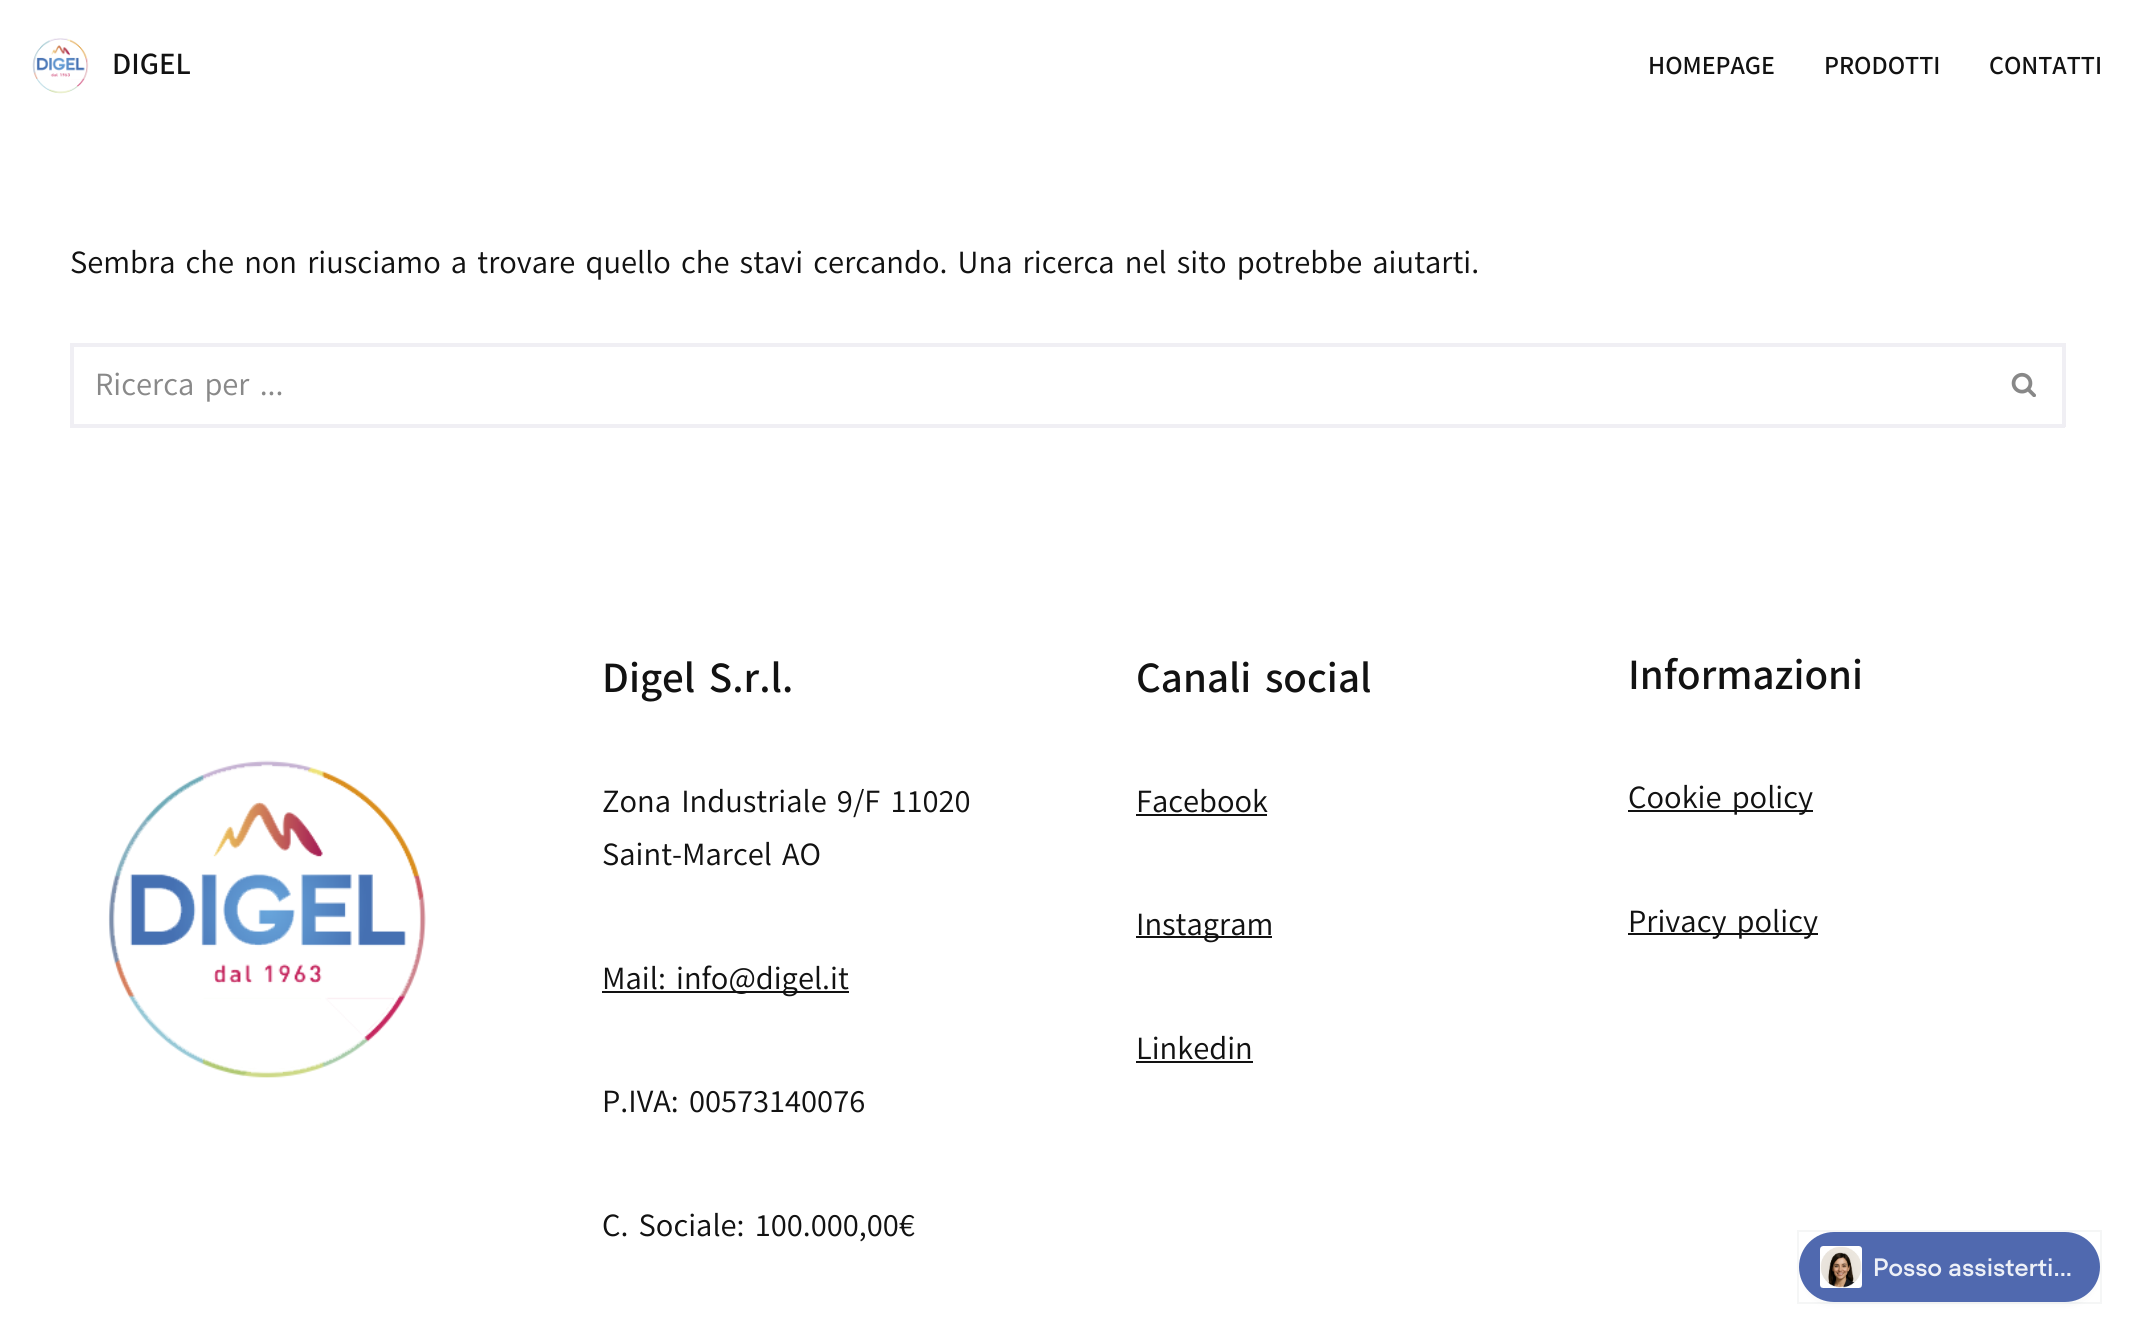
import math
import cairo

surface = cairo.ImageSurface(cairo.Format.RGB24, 2135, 1336)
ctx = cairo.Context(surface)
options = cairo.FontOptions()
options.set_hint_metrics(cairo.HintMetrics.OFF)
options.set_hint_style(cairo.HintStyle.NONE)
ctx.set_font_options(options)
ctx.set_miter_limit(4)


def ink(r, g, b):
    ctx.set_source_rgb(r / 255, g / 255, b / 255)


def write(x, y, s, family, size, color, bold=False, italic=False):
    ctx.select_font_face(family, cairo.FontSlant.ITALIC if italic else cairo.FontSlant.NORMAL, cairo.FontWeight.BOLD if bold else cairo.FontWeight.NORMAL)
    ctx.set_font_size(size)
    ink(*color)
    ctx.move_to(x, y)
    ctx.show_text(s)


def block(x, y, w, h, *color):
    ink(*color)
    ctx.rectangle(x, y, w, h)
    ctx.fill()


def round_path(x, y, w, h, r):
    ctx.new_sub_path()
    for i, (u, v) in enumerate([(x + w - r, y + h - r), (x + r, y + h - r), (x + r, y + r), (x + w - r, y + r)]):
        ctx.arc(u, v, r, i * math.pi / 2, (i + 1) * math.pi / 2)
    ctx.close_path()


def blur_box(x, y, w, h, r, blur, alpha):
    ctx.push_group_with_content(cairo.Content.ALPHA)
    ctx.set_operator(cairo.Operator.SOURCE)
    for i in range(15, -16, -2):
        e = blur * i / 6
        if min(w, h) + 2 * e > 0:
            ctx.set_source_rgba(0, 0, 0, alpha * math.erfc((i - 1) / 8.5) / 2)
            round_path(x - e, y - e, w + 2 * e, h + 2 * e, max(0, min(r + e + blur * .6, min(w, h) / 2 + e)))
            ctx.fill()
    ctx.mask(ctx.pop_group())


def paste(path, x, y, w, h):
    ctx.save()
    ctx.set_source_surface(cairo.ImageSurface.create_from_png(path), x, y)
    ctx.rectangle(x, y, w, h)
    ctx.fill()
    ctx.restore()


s1 = dict(family="Akatab SemiBold", size=30, color=(18, 18, 18))
s2 = dict(family="Akatab SemiBold", size=25.25, color=(18, 18, 18))
s3 = dict(family="Akatab", size=31.5, color=(18, 18, 18))
s4 = dict(family="Akatab", size=31.5, color=(137, 137, 137))
s5 = dict(family="Akatab SemiBold", size=42, color=(18, 18, 18))
s6 = dict(family="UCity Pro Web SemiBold", size=24.5, color=(237, 240, 247))

ink(255, 255, 255)
ctx.paint()
paste("pic1.png", 32, 38, 57, 56)
write(112, 74, "DIGEL", **s1)
write(1648, 74, "HOMEPAGE", **s2)
write(1824, 74, "PRODOTTI", **s2)
write(1989, 74, "CONTATTI", **s2)
write(70, 273, "Sembra che non riusciamo a trovare quello che stavi cercando. Una ricerca nel sito potrebbe aiutarti.", **s3)
block(70, 343, 1995, 4, 240, 239, 244)
block(70, 424, 1916, 4, 240, 239, 244)
block(70, 343, 4, 84, 240, 239, 244)
write(95, 395, "Ricerca per ...", **s4)
block(2062, 343, 4, 84, 240, 239, 244)
block(1986, 424, 79, 4, 240, 239, 244)
paste("pic2.png", 2011, 372, 25, 25)
paste("pic3.png", 108, 760, 318, 318)
write(602, 692, "Digel S.r.l.", **s5)
write(602, 812, "Zona Industriale 9/F 11020", **s3)
write(602, 865, "Saint-Marcel AO", **s3)
block(602, 991, 247, 2, 18, 18, 18)
write(602, 989, "Mail: info@digel.it", **s3)
write(602, 1112, "P.IVA: 00573140076", **s3)
write(602, 1236, "C. Sociale: 100.000,00€", **s3)
write(1136, 692, "Canali social", **s5)
write(1136, 812, "Facebook", **s3)
block(1136, 814, 131, 2, 18, 18, 18)
block(1136, 936, 136, 2, 18, 18, 18)
write(1136, 935, "Instagram", **s3)
write(1136, 1059, "Linkedin", **s3)
block(1136, 1061, 117, 2, 18, 18, 18)
write(1628, 689, "Informazioni", **s5)
block(1628, 810, 185, 2, 18, 18, 18)
write(1628, 808, "Cookie policy", **s3)
block(1628, 933, 190, 2, 18, 18, 18)
write(1628, 932, "Privacy policy", **s3)
ink(22, 26, 30)
blur_box(1810, 1250, 280, 49, 24.5, 7, 0.08)
ctx.rectangle(1798, 1231, 303, 72)
ctx.set_source_rgba(0.086, 0.102, 0.118, 0.04)
ctx.stroke()
ink(80, 105, 175)
round_path(1799, 1232, 301, 70, 35)
ctx.fill()
paste("pic4.png", 1820, 1246, 42, 42)
write(1873, 1276, "Posso assisterti...", **s6)
surface.write_to_png("screenshot.png")
